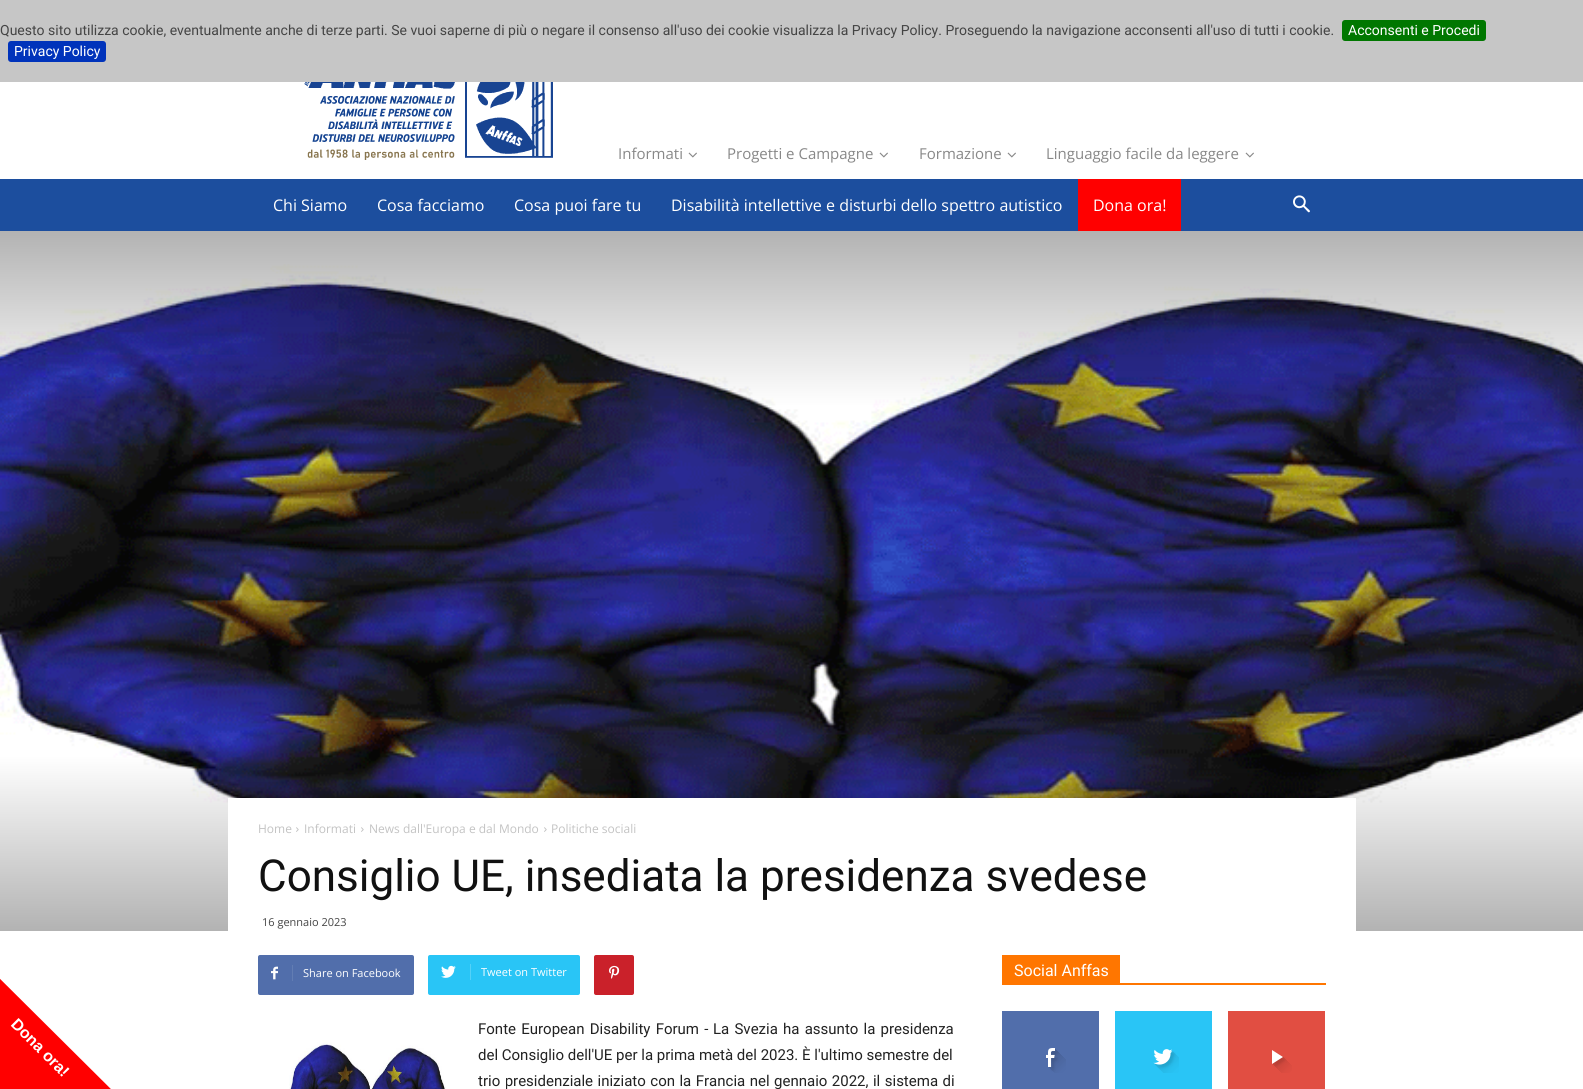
import math
import cairo

surface = cairo.ImageSurface(cairo.Format.RGB24, 1583, 1089)
ctx = cairo.Context(surface)
options = cairo.FontOptions()
options.set_hint_metrics(cairo.HintMetrics.OFF)
options.set_hint_style(cairo.HintStyle.NONE)
ctx.set_font_options(options)
ctx.set_miter_limit(4)


def ink(r, g, b):
    ctx.set_source_rgb(r / 255, g / 255, b / 255)


def write(x, y, s, family, size, color, bold=False, italic=False):
    ctx.select_font_face(family, cairo.FontSlant.ITALIC if italic else cairo.FontSlant.NORMAL, cairo.FontWeight.BOLD if bold else cairo.FontWeight.NORMAL)
    ctx.set_font_size(size)
    ink(*color)
    ctx.move_to(x, y)
    ctx.show_text(s)


def write_spaced(x, y, s, letter, word):
    ctx.move_to(x, y)
    for ch in s:
        ctx.show_text(ch)
        ctx.rel_move_to(letter + word * (ch == ' '), 0)


def block(x, y, w, h, *color):
    ink(*color)
    ctx.rectangle(x, y, w, h)
    ctx.fill()


def round_path(x, y, w, h, r):
    ctx.new_sub_path()
    for i, (u, v) in enumerate([(x + w - r, y + h - r), (x + r, y + h - r), (x + r, y + r), (x + w - r, y + r)]):
        ctx.arc(u, v, r, i * math.pi / 2, (i + 1) * math.pi / 2)
    ctx.close_path()


def paste(path, x, y, w, h):
    ctx.save()
    ctx.set_source_surface(cairo.ImageSurface.create_from_png(path), x, y)
    ctx.rectangle(x, y, w, h)
    ctx.fill()
    ctx.restore()


s1 = dict(family="Roboto", size=14, color=(68, 68, 68))
s2 = dict(family="Roboto", size=14, color=(255, 255, 255))
s3 = dict(family="Liberation Sans", size=16, color=(255, 255, 255), bold=True)
s4 = dict(family="Open Sans", size=15, color=(136, 136, 136))
s5 = dict(family="Open Sans", size=16, color=(255, 255, 255))
s6 = dict(family="Open Sans", size=12, color=(195, 195, 195))
s7 = dict(family="Roboto", size=44, color=(17, 17, 17))
s8 = dict(family="Open Sans", size=11, color=(68, 68, 68))
s9 = dict(family="Open Sans", size=11, color=(255, 255, 255))
s10 = dict(family="Roboto", size=15, color=(34, 34, 34))
s11 = dict(family="Roboto", size=16, color=(255, 255, 255))

ink(255, 255, 255)
ctx.paint()
block(0, 0, 1583, 82, 198, 198, 198)
write(0, 35, "Questo sito utilizza cookie, eventualmente anche di terze parti. Se vuoi saperne di più o negare il consenso all'uso dei cookie visualizza la Privacy Policy. Proseguendo la navigazione acconsenti all'uso di tutti i cookie.", **s1)
ink(0, 119, 0)
round_path(1342, 20, 144, 21, 3)
ctx.fill()
write(1348, 35, "Acconsenti e Procedi", **s2)
ink(0, 51, 187)
round_path(8, 41, 98, 21, 3)
ctx.fill()
write(14, 56, "Privacy Policy", **s2)
ink(255, 0, 0)
ctx.new_path()
ctx.move_to(-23, 956)
ctx.line_to(133, 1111)
ctx.curve_to(135, 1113, 135, 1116, 133, 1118)
ctx.line_to(-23, 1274)
ctx.curve_to(-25, 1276, -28, 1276, -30, 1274)
ctx.line_to(-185, 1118)
ctx.curve_to(-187, 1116, -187, 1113, -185, 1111)
ctx.line_to(-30, 956)
ctx.curve_to(-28, 954, -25, 954, -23, 956)
ctx.close_path()
ctx.fill()
ctx.save()
ctx.translate(10, 1025)
ctx.rotate(45 * math.pi / 180)
write(0, 0, "Dona ora!", **s3)
ctx.restore()
paste("pic1.png", 304, 82, 249, 78)
write(618, 159, "Informati", **s4)
paste("pic2.png", 688, 152, 9, 6)
write(727, 159, "Progetti e Campagne", **s4)
paste("pic2.png", 879, 152, 9, 6)
write(919, 159, "Formazione", **s4)
paste("pic2.png", 1007, 152, 9, 6)
write(1046, 159, "Linguaggio facile da leggere", **s4)
paste("pic2.png", 1245, 152, 9, 6)
block(0, 179, 1583, 52, 28, 78, 158)
write(273, 211, "Chi Siamo", **s5)
write(377, 211, "Cosa facciamo", **s5)
write(514, 211, "Cosa puoi fare tu", **s5)
write(671, 211, "Disabilità intellettive e disturbi dello spettro autistico", **s5)
block(1078, 179, 103, 52, 255, 0, 0)
write(1093, 211, "Dona ora!", **s5)
paste("pic3.png", 1293, 195, 17, 18)
paste("pic4.png", 0, 264, 1583, 584)
gradient = cairo.LinearGradient(792, 231, 792, 931)
gradient.add_color_stop_rgba(0, 0, 0, 0, 0.3)
gradient.add_color_stop_rgba(0.25, 0, 0, 0, 0)
gradient.add_color_stop_rgba(0.75, 0, 0, 0, 0)
gradient.add_color_stop_rgba(1, 0, 0, 0, 0.3)
ctx.set_source(gradient)
ctx.rectangle(0, 231, 1583, 700)
ctx.fill()
block(228, 798, 1128, 133, 255, 255, 255)
write(258, 833, "Home", **s6)
paste("pic5.png", 296, 827, 3, 5)
write(304, 833, "Informati", **s6)
paste("pic5.png", 361, 827, 3, 5)
write(369, 833, "News dall'Europa e dal Mondo", **s6)
paste("pic5.png", 544, 827, 3, 5)
write(551, 833, "Politiche sociali", **s6)
write(258, 891, "Consiglio UE, insediata la presidenza svedese", **s7)
write(262, 926, "16 gennaio 2023", **s8)
ink(81, 110, 171)
round_path(258, 955, 156, 40, 2)
ctx.fill()
paste("pic6.png", 271, 966, 7, 14)
block(292, 965, 1, 16, 98, 125, 179)
write(303, 977, "Share on Facebook", **s9)
ink(41, 197, 246)
round_path(428, 955, 152, 40, 2)
ctx.fill()
paste("pic7.png", 441, 965, 15, 13)
block(470, 964, 1, 16, 84, 209, 248)
write(481, 976, "Tweet on Twitter", **s9)
ink(202, 33, 42)
round_path(594, 955, 40, 40, 2)
ctx.fill()
paste("pic8.png", 609, 965, 11, 14)
ctx.select_font_face("Roboto")
ctx.set_font_size(15)
ink(34, 34, 34)
write_spaced(478, 1034, "Fonte European Disability Forum -", 0, 1.5)
write_spaced(713, 1034, "La Svezia ha assunto la presidenza", 0, 1.5)
paste("pic9.png", 289, 1040, 157, 49)
write(478, 1060, "del Consiglio dell'UE per la prima metà del 2023. È l'ultimo semestre del", **s10)
write_spaced(478, 1086, "trio presidenziale iniziato con la Francia nel gennaio 2022, il sistema di", 0, 0.75)
block(1002, 983, 324, 2, 255, 118, 0)
block(1002, 955, 118, 28, 255, 118, 0)
write(1014, 976, "Social Anffas", **s11)
block(1002, 1011, 97, 78, 81, 110, 171)
paste("pic10.png", 1046, 1048, 20, 25)
block(1115, 1011, 97, 78, 41, 197, 246)
paste("pic11.png", 1153, 1049, 26, 24)
block(1228, 1011, 97, 78, 225, 78, 66)
paste("pic12.png", 1272, 1050, 20, 23)
surface.write_to_png("screenshot.png")
